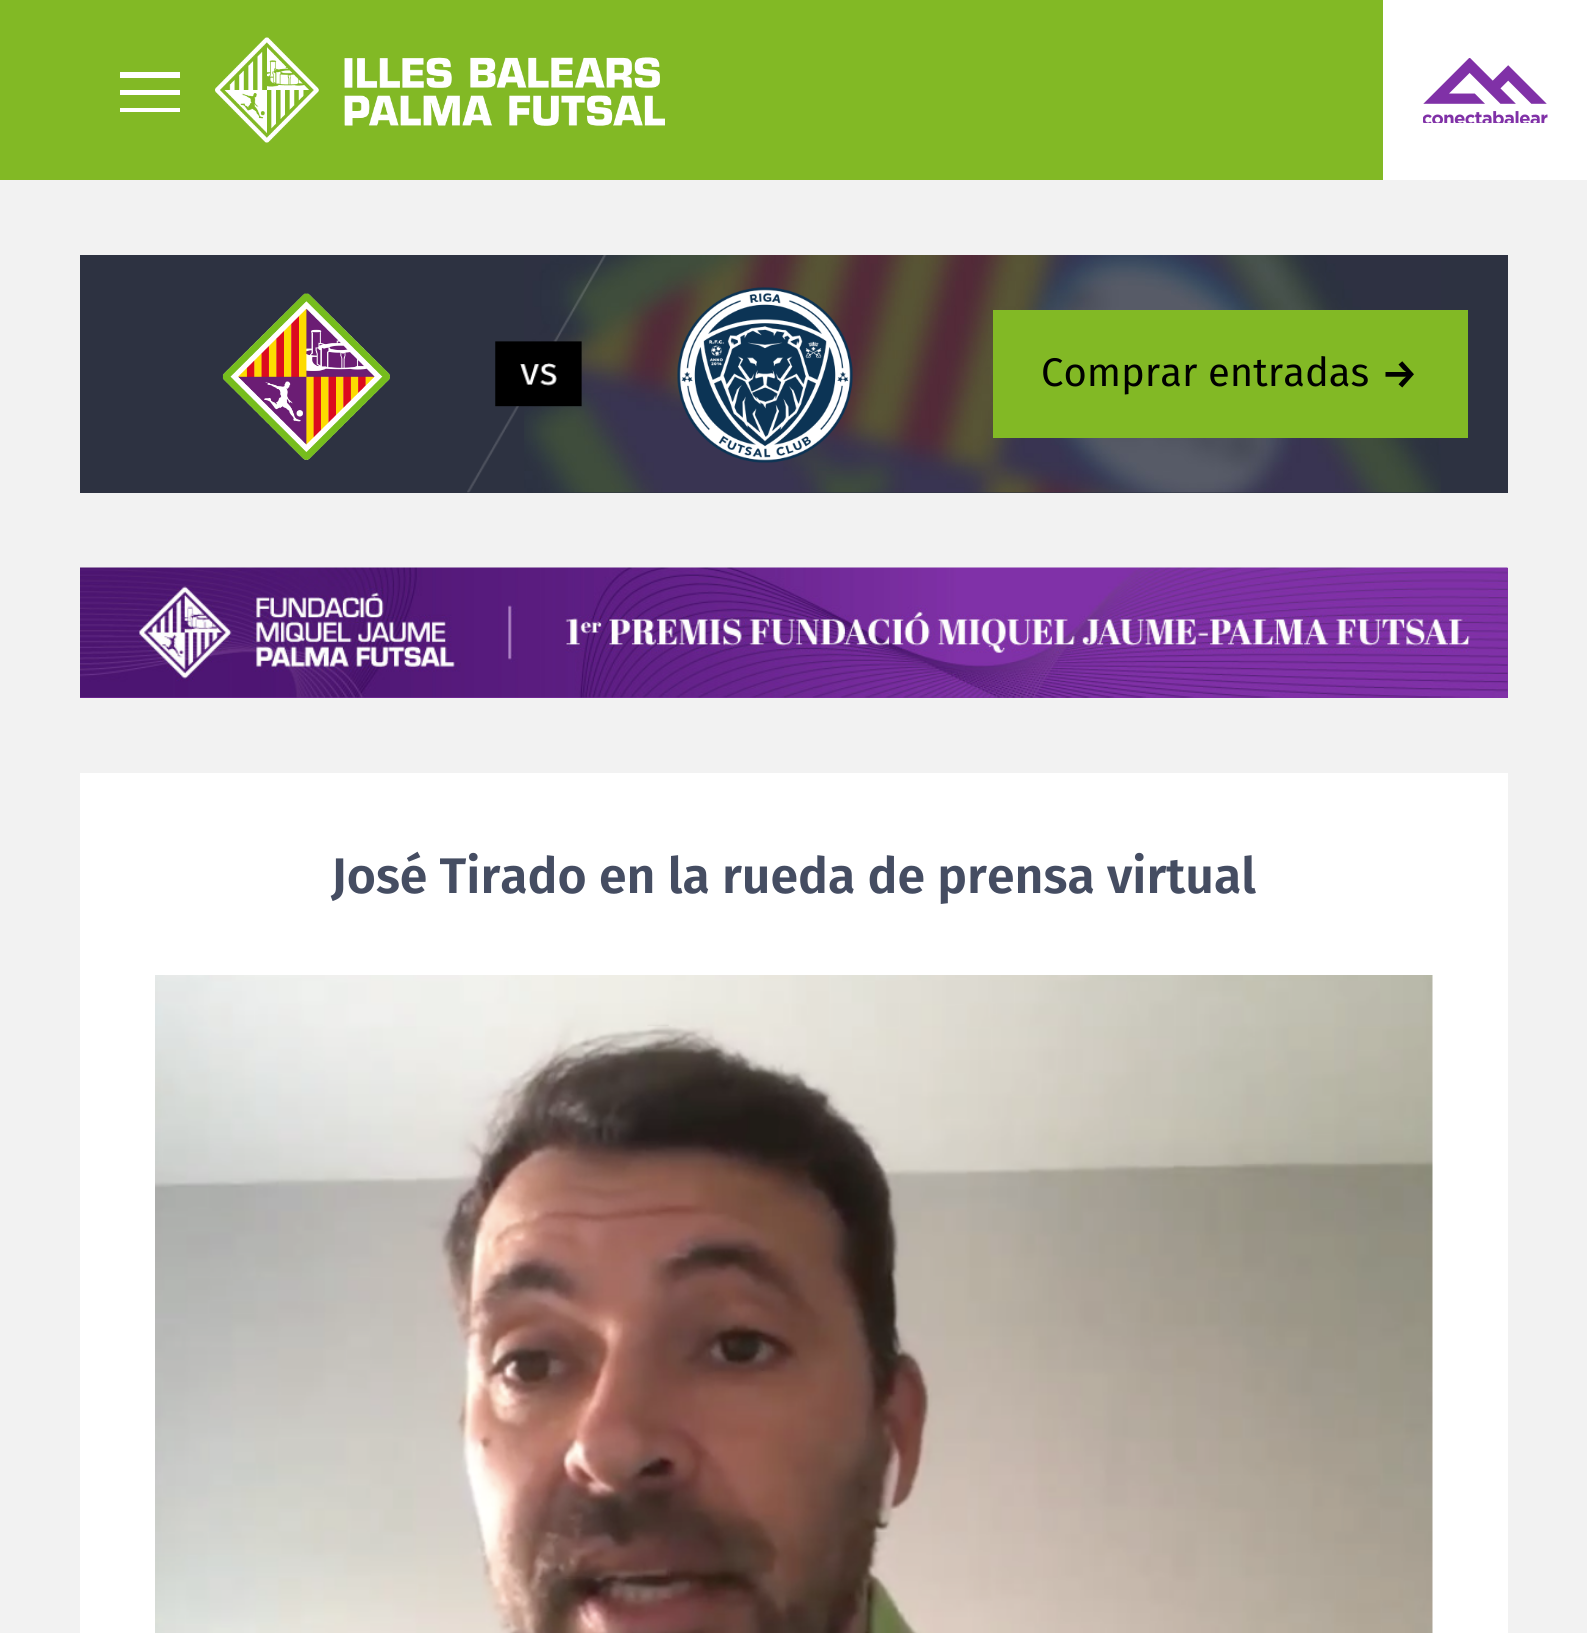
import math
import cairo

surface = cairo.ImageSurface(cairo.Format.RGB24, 1587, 1633)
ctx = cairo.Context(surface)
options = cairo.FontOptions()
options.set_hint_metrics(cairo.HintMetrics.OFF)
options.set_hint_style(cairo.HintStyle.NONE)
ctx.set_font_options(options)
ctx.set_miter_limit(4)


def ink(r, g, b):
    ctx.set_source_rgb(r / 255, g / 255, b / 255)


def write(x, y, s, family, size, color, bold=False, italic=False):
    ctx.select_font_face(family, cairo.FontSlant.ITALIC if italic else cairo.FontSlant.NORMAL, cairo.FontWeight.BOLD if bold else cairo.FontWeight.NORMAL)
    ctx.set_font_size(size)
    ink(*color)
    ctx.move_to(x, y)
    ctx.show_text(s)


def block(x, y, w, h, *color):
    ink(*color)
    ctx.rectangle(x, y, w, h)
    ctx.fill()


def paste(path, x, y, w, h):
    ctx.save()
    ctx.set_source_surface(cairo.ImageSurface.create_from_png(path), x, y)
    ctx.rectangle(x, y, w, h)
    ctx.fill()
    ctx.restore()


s1 = dict(family="Fira Sans", size=40, color=(0, 0, 0))
s2 = dict(family="Fira Sans SemiBold", size=50, color=(69, 77, 98))

ink(242, 242, 242)
ctx.paint()
block(0, 0, 1383, 180, 130, 185, 37)
ink(255, 255, 255)
ctx.new_path()
ctx.move_to(120, 72)
ctx.line_to(180, 72)
ctx.line_to(180, 78)
ctx.line_to(120, 78)
ctx.close_path()
ctx.move_to(120, 90)
ctx.line_to(180, 90)
ctx.line_to(180, 95)
ctx.line_to(120, 95)
ctx.close_path()
ctx.move_to(120, 108)
ctx.line_to(180, 108)
ctx.line_to(180, 112)
ctx.line_to(120, 112)
ctx.close_path()
ctx.fill()
paste("pic1.png", 215, 37, 450, 106)
block(1383, 0, 204, 180, 255, 255, 255)
paste("pic2.png", 1423, 58, 125, 65)
block(80, 255, 1428, 238, 45, 50, 65)
paste("pic3.png", 524, 255, 917, 238)
paste("pic4.png", 467, 255, 140, 238)
paste("pic5.png", 222, 293, 168, 167)
paste("pic6.png", 677, 287, 176, 176)
block(993, 310, 475, 128, 130, 185, 37)
write(1041, 386, "Comprar entradas", **s1)
paste("pic7.png", 1385, 361, 29, 27)
block(80, 568, 1428, 130, 128, 49, 167)
paste("pic8.png", 80, 567, 1428, 131)
block(80, 773, 1428, 860, 255, 255, 255)
write(331, 893, "José Tirado en la rueda de prensa virtual", **s2)
paste("pic9.png", 155, 975, 1278, 658)
surface.write_to_png("screenshot.png")
